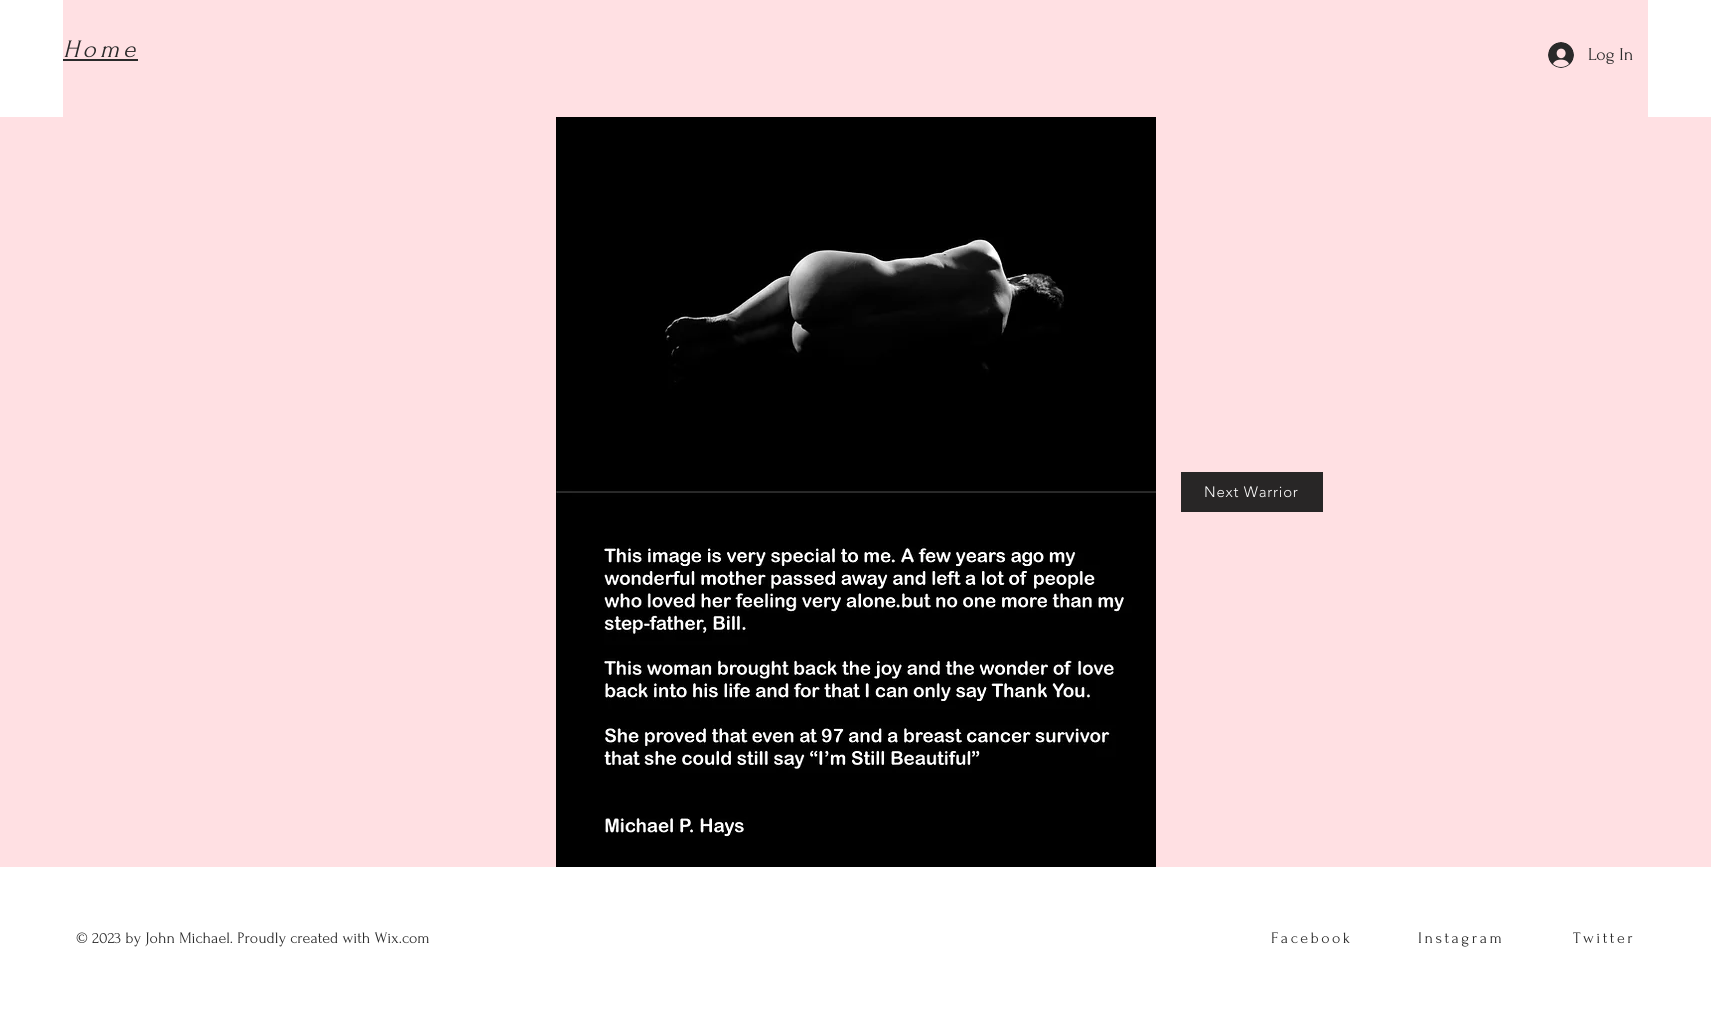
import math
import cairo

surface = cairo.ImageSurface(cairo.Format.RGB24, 1711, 1026)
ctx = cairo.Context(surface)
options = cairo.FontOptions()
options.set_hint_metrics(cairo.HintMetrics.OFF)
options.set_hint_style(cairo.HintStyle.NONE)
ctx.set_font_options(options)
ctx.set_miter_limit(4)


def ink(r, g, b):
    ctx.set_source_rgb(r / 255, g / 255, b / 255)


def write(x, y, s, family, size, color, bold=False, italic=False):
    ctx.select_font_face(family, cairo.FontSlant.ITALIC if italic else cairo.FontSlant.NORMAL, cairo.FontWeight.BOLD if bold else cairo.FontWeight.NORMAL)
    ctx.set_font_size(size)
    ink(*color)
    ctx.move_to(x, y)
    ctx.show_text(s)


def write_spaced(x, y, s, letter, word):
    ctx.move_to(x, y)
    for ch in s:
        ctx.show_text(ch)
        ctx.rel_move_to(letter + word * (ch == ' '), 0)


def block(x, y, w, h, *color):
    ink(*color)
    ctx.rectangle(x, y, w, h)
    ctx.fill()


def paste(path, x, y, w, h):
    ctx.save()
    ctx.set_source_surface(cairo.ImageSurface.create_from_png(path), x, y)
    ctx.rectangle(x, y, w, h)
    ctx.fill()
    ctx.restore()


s1 = dict(family="Forum", size=18, color=(42, 42, 42))
s2 = dict(family="Forum", size=16, color=(42, 42, 42))

ink(255, 224, 227)
ctx.paint()
block(0, 0, 1711, 117, 255, 255, 255)
block(63, 0, 1585, 117, 255, 224, 227)
ctx.select_font_face("Forum", cairo.FontSlant.ITALIC)
ctx.set_font_size(25)
ink(42, 42, 42)
write_spaced(63, 57, "Home", 4, 0)
block(63, 59, 75, 2, 42, 42, 42)
paste("pic1.png", 1548, 42, 26, 26)
write(1588, 60, "Log In", **s1)
paste("pic2.png", 556, 117, 600, 750)
block(1181, 472, 142, 40, 40, 38, 38)
ctx.select_font_face("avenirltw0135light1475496 Light")
ctx.set_font_size(15)
ink(255, 255, 255)
write_spaced(1204, 497, "Next Warrior", 0.75, 0)
block(0, 867, 1711, 159, 255, 255, 255)
write(76, 943, "© 2023 by John Michael. Proudly created with Wix.com", **s2)
write_spaced(1271, 943, "Facebook", 2.5, 0)
write_spaced(1418, 943, "Instagram", 2.5, 0)
write_spaced(1573, 943, "Twitter", 2.5, 0)
surface.write_to_png("screenshot.png")
